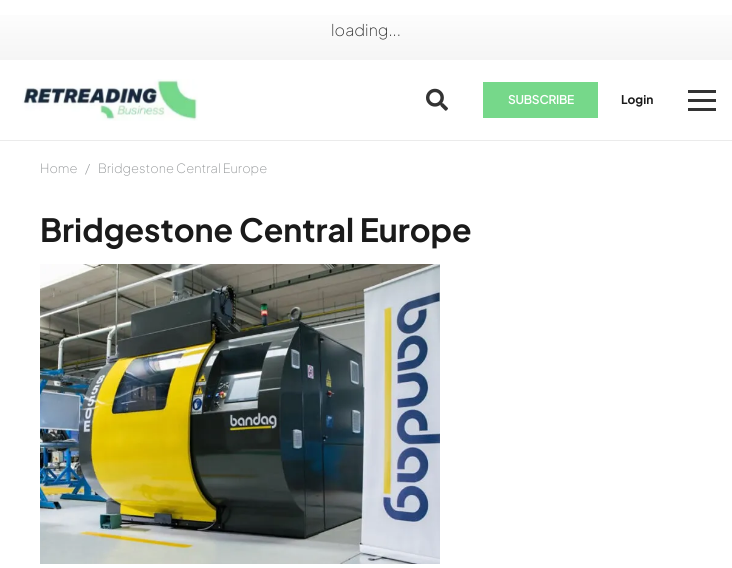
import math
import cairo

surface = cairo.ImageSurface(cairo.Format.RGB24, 732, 568)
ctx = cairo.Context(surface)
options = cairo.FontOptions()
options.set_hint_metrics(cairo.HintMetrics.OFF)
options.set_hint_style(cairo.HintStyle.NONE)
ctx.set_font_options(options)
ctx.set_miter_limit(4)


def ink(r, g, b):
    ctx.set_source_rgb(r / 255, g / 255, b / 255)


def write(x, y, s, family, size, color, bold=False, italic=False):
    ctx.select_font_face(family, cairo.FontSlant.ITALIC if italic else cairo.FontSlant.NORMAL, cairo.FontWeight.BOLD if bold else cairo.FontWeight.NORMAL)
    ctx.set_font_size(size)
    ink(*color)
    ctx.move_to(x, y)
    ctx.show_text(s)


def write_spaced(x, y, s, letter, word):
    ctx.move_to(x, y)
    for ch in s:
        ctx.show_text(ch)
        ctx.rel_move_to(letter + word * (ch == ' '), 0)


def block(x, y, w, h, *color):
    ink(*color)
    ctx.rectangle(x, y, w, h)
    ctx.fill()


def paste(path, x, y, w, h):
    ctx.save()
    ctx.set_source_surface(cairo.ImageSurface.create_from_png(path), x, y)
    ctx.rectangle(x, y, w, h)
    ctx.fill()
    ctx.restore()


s1 = dict(family="Plus Jakarta Sans ExtraLight", size=16, color=(51, 51, 51))
s2 = dict(family="Plus Jakarta Sans", size=12, color=(26, 26, 26), bold=True)
s3 = dict(family="Plus Jakarta Sans ExtraLight", size=12.75, color=(148, 151, 153))
s4 = dict(family="Plus Jakarta Sans", size=32, color=(26, 26, 26), bold=True)

ink(255, 255, 255)
ctx.paint()
gradient = cairo.LinearGradient(366, 60, 366, 0)
gradient.add_color_stop_rgba(0, 0.961, 0.961, 0.961, 1)
gradient.add_color_stop_rgba(1, 1, 1, 1, 1)
ctx.set_source(gradient)
ctx.rectangle(0, 15, 732, 45)
ctx.fill()
write(331, 36, "loading...", **s1)
block(0, 140, 732, 1, 235, 235, 235)
paste("pic1.png", 22, 79, 176, 42)
paste("pic2.png", 426, 88, 22, 23)
block(483, 82, 115, 36, 118, 216, 138)
ctx.select_font_face("Plus Jakarta Sans SemiBold")
ctx.set_font_size(12)
ink(255, 255, 255)
write_spaced(508, 104, "SUBSCRIBE", -0.25, 0)
write(621, 104, "Login", **s2)
block(688, 99, 28, 3, 51, 51, 51)
block(688, 90, 28, 3, 51, 51, 51)
block(688, 108, 28, 3, 51, 51, 51)
write(40, 173, "Home", **s3)
write(85, 173, "/", **s3)
write(98, 173, "Bridgestone Central Europe", **s3)
write(40, 242, "Bridgestone Central Europe", **s4)
paste("pic3.png", 40, 264, 400, 300)
surface.write_to_png("screenshot.png")
